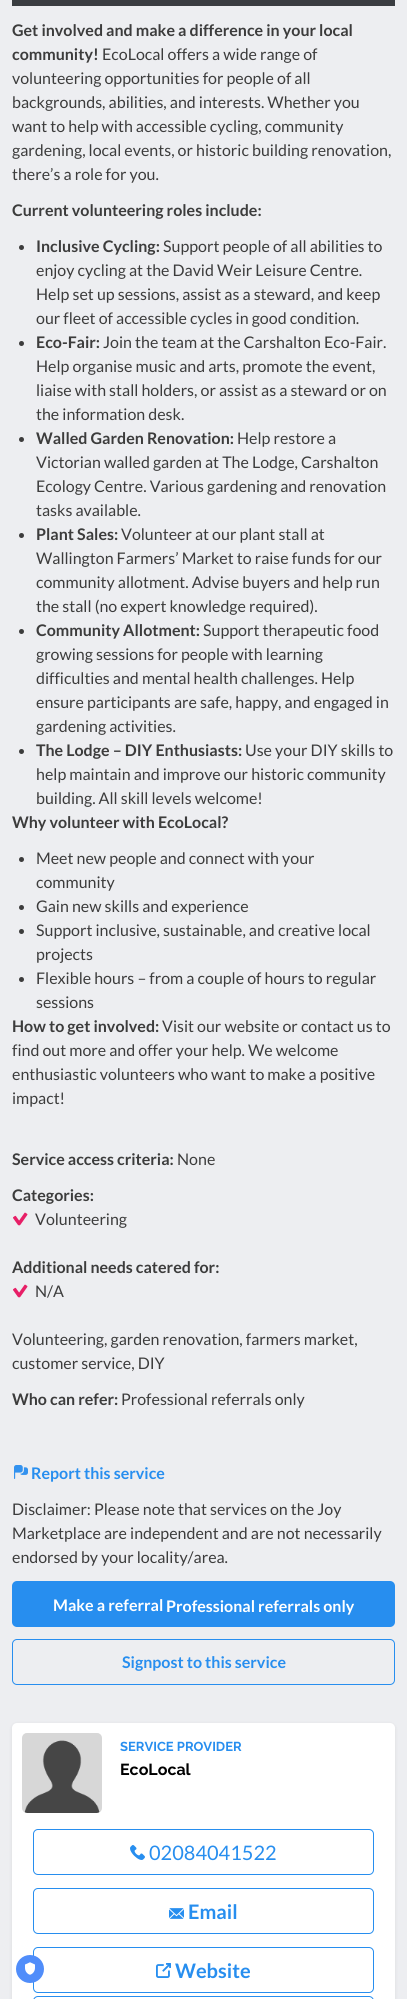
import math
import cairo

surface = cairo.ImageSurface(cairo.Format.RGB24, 407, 1999)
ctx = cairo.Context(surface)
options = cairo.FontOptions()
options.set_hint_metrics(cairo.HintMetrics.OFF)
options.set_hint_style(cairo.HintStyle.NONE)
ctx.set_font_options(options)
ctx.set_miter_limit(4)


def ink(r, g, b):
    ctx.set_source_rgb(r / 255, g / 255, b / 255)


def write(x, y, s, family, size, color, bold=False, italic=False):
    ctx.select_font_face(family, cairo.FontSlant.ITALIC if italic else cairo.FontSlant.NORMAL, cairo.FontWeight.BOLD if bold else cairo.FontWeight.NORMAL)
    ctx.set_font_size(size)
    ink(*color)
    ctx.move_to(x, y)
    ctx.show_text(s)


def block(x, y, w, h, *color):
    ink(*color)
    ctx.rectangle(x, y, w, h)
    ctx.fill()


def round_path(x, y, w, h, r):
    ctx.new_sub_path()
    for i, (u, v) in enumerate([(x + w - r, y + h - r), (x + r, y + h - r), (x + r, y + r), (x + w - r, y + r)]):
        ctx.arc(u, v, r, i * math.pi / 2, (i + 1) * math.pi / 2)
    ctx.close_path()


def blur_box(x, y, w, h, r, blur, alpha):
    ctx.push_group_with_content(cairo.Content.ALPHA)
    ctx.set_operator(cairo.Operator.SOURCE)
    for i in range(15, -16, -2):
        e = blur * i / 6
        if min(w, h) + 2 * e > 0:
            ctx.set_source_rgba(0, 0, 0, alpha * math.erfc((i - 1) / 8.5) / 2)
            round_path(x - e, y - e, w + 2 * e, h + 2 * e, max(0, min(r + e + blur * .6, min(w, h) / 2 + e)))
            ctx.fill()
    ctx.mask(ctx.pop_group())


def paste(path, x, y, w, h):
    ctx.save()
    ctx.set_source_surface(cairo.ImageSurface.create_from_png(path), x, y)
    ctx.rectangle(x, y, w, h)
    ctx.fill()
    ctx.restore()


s1 = dict(family="Lato", size=16, color=(60, 60, 60), bold=True)
s2 = dict(family="Lato", size=16, color=(60, 60, 60))
s3 = dict(family="Lato", size=16, color=(39, 142, 239), bold=True)
s4 = dict(family="Lato", size=16, color=(255, 255, 255), bold=True)
s5 = dict(family="Raleway Thin", size=13, color=(39, 142, 239))
s6 = dict(family="Raleway Thin", size=16, color=(0, 0, 0))
s7 = dict(family="Lato", size=20, color=(39, 142, 239))
s8 = dict(family="Lato", size=20, color=(39, 142, 239), bold=True)

ink(237, 238, 241)
ctx.paint()
block(12, 0, 383, 6, 58, 61, 65)
write(12, 36, "Get involved and make a difference in your local", **s1)
write(12, 60, "community!", **s1)
write(102, 60, "EcoLocal offers a wide range of", **s2)
write(12, 84, "volunteering opportunities for people of all", **s2)
write(12, 108, "backgrounds, abilities, and interests. Whether you", **s2)
write(12, 132, "want to help with accessible cycling, community", **s2)
write(12, 156, "gardening, local events, or historic building renovation,", **s2)
write(12, 180, "there’s a role for you.", **s2)
write(12, 216, "Current volunteering roles include:", **s1)
ctx.new_path()
ctx.arc(21.5, 247.5, 2.5, 0, 2 * math.pi)
ctx.fill()
write(36, 252, "Inclusive Cycling:", **s1)
write(163, 252, "Support people of all abilities to", **s2)
write(36, 276, "enjoy cycling at the David Weir Leisure Centre.", **s2)
write(36, 300, "Help set up sessions, assist as a steward, and keep", **s2)
write(36, 324, "our fleet of accessible cycles in good condition.", **s2)
ctx.new_path()
ctx.arc(21.5, 343.5, 2.5, 0, 2 * math.pi)
ctx.fill()
write(36, 348, "Eco-Fair:", **s1)
write(103, 348, "Join the team at the Carshalton Eco-Fair.", **s2)
write(36, 372, "Help organise music and arts, promote the event,", **s2)
write(36, 396, "liaise with stall holders, or assist as a steward or on", **s2)
write(36, 420, "the information desk.", **s2)
ctx.new_path()
ctx.arc(21.5, 439.5, 2.5, 0, 2 * math.pi)
ctx.fill()
write(36, 444, "Walled Garden Renovation:", **s1)
write(237, 444, "Help restore a", **s2)
write(36, 468, "Victorian walled garden at The Lodge, Carshalton", **s2)
write(36, 492, "Ecology Centre. Various gardening and renovation", **s2)
write(36, 516, "tasks available.", **s2)
ctx.new_path()
ctx.arc(21.5, 535.5, 2.5, 0, 2 * math.pi)
ctx.fill()
write(36, 540, "Plant Sales:", **s1)
write(121, 540, "Volunteer at our plant stall at", **s2)
write(36, 564, "Wallington Farmers’ Market to raise funds for our", **s2)
write(36, 588, "community allotment. Advise buyers and help run", **s2)
write(36, 612, "the stall (no expert knowledge required).", **s2)
ctx.new_path()
ctx.arc(21.5, 631.5, 2.5, 0, 2 * math.pi)
ctx.fill()
write(36, 636, "Community Allotment:", **s1)
write(203, 636, "Support therapeutic food", **s2)
write(36, 660, "growing sessions for people with learning", **s2)
write(36, 684, "difficulties and mental health challenges. Help", **s2)
write(36, 708, "ensure participants are safe, happy, and engaged in", **s2)
write(36, 732, "gardening activities.", **s2)
ctx.new_path()
ctx.arc(21.5, 751.5, 2.5, 0, 2 * math.pi)
ctx.fill()
write(36, 756, "The Lodge – DIY Enthusiasts:", **s1)
write(245, 756, "Use your DIY skills to", **s2)
write(36, 780, "help maintain and improve our historic community", **s2)
write(36, 804, "building. All skill levels welcome!", **s2)
write(12, 828, "Why volunteer with EcoLocal?", **s1)
ctx.new_path()
ctx.arc(21.5, 859.5, 2.5, 0, 2 * math.pi)
ctx.fill()
write(36, 864, "Meet new people and connect with your", **s2)
write(36, 888, "community", **s2)
ctx.new_path()
ctx.arc(21.5, 907.5, 2.5, 0, 2 * math.pi)
ctx.fill()
write(36, 912, "Gain new skills and experience", **s2)
ctx.new_path()
ctx.arc(21.5, 931.5, 2.5, 0, 2 * math.pi)
ctx.fill()
write(36, 936, "Support inclusive, sustainable, and creative local", **s2)
write(36, 960, "projects", **s2)
ctx.new_path()
ctx.arc(21.5, 979.5, 2.5, 0, 2 * math.pi)
ctx.fill()
write(36, 984, "Flexible hours – from a couple of hours to regular", **s2)
write(36, 1008, "sessions", **s2)
write(12, 1032, "How to get involved:", **s1)
write(162, 1032, "Visit our website or contact us to", **s2)
write(12, 1056, "find out more and offer your help. We welcome", **s2)
write(12, 1080, "enthusiastic volunteers who want to make a positive", **s2)
write(12, 1104, "impact!", **s2)
write(12, 1165, "Service access criteria:", **s1)
write(177, 1165, "None", **s2)
write(12, 1201, "Categories:", **s1)
paste("pic1.png", 13, 1212, 15, 14)
write(35, 1225, "Volunteering", **s2)
write(12, 1273, "Additional needs catered for:", **s1)
paste("pic1.png", 13, 1284, 15, 14)
write(35, 1297, "N/A", **s2)
write(12, 1345, "Volunteering, garden renovation, farmers market,", **s2)
write(12, 1369, "customer service, DIY", **s2)
write(12, 1405, "Who can refer:", **s1)
write(121, 1405, "Professional referrals only", **s2)
paste("pic2.png", 14, 1465, 14, 14)
write(31, 1479, "Report this service", **s3)
write(12, 1515, "Disclaimer: Please note that services on the Joy", **s2)
write(12, 1539, "Marketplace are independent and are not necessarily", **s2)
write(12, 1563, "endorsed by your locality/area.", **s2)
ink(39, 142, 239)
round_path(12, 1581, 383, 46, 5)
ctx.fill()
write(53, 1611, "Make a referral", **s4)
write(166, 1612, "Professional referrals only", **s4)
round_path(12.5, 1639.5, 382, 45, 4.5)
ink(39, 142, 239)
ctx.set_line_width(1)
ctx.stroke()
write(122, 1668, "Signpost to this service", **s3)
ink(0, 0, 0)
blur_box(12, 1724, 383, 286, 5, 2, 0.08)
ink(255, 255, 255)
round_path(12, 1723, 383, 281, 5)
ctx.fill()
paste("pic3.png", 22, 1733, 80, 80)
write(120, 1751, "SERVICE PROVIDER", **s5)
write(120, 1775, "EcoLocal", **s6)
round_path(33.5, 1829.5, 340, 45, 4.5)
ink(39, 142, 239)
ctx.stroke()
paste("pic4.png", 130, 1845, 15, 15)
write(149, 1860, "02084041522", **s7)
round_path(33.5, 1888.5, 340, 45, 4.5)
ctx.stroke()
paste("pic5.png", 169, 1908, 15, 11)
write(188, 1919, "Email", **s8)
round_path(33.5, 1947.5, 340, 45, 4.5)
ctx.stroke()
paste("pic6.png", 156, 1963, 15, 15)
write(175, 1978, "Website", **s8)
round_path(33.5, 1996.5, 340, 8, 4.5)
ctx.stroke()
ink(80, 141, 250)
ctx.arc(30, 1969, 14, 0, 2 * math.pi)
ctx.fill()
paste("pic7.png", 25, 1962, 10, 13)
surface.write_to_png("screenshot.png")
